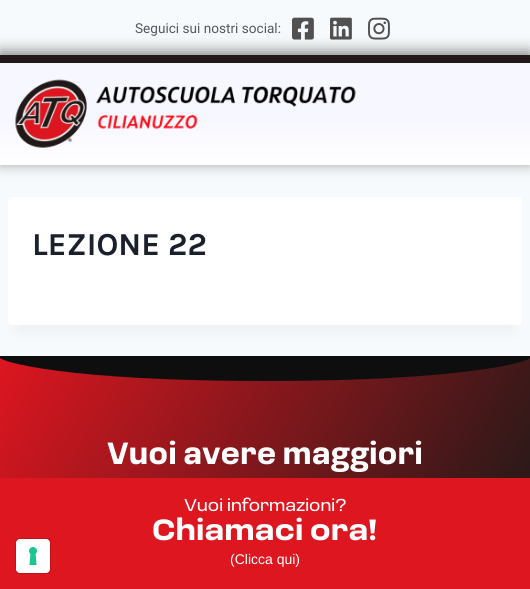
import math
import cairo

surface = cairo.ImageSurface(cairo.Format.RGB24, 530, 589)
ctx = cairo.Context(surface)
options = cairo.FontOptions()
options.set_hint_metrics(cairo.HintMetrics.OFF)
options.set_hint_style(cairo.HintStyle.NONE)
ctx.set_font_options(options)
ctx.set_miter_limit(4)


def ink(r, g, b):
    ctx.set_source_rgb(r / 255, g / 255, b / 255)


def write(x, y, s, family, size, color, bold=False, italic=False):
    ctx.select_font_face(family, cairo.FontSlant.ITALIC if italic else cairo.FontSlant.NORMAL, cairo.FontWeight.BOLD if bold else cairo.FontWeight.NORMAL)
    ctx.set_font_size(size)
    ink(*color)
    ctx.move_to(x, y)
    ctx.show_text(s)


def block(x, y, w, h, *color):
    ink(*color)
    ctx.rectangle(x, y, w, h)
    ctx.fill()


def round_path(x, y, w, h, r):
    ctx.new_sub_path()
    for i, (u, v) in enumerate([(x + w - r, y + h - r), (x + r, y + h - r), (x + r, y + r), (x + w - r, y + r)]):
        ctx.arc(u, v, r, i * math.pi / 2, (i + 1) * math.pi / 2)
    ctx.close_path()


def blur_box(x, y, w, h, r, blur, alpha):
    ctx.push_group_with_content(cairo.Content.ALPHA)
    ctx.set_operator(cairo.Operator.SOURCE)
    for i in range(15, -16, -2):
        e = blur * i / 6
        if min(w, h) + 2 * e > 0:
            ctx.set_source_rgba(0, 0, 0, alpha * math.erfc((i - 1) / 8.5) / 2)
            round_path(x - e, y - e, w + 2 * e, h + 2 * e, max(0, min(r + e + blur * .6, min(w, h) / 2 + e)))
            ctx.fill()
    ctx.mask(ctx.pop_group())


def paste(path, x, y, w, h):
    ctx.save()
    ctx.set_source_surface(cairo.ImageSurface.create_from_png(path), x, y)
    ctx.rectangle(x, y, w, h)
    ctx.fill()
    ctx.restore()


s1 = dict(family="Roboto", size=13.6, color=(84, 89, 95))
s2 = dict(family="Karla", size=32, color=(26, 32, 44), bold=True)
s3 = dict(family="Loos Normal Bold", size=32, color=(255, 255, 255), bold=True)
s4 = dict(family="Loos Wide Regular", size=18, color=(255, 255, 255))
s5 = dict(family="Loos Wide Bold", size=30.5, color=(255, 255, 255), bold=True)
s6 = dict(family="Liberation Sans", size=14, color=(255, 255, 255))

ink(247, 250, 252)
ctx.paint()
block(0, 478, 530, 111, 221, 22, 32)
round_path(15.5, 538.5, 35, 35, 4.5)
ink(188, 19, 27)
ctx.set_line_width(1)
ctx.stroke()
ink(255, 255, 255)
round_path(16, 539, 34, 34, 4)
ctx.fill()
paste("pic1.png", 29, 547, 8, 18)
write(135, 33, "Seguici sui nostri social:", **s1)
paste("pic2.png", 292, 17, 22, 23)
paste("pic3.png", 330, 17, 22, 23)
paste("pic4.png", 368, 17, 22, 23)
ink(0, 0, 0)
blur_box(0, 52, 530, 110, 0, 7.5, 0.5)
gradient = cairo.LinearGradient(265, 63, 265, 165)
gradient.add_color_stop_rgba(0.58, 0.969, 0.969, 1, 1)
gradient.add_color_stop_rgba(1, 1, 1, 1, 1)
ctx.set_source(gradient)
ctx.rectangle(0, 63, 530, 102)
ctx.fill()
block(0, 55, 530, 8, 32, 25, 24)
paste("pic5.png", 15, 79, 341, 69)
ink(0, 0, 0)
blur_box(18, 222, 494, 108, 0, 7.5, 0.05)
ink(255, 255, 255)
round_path(8, 197, 514, 128, 4)
ctx.fill()
write(32, 255, "LEZIONE 22", **s2)
gradient = cairo.LinearGradient(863, 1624, -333, 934)
gradient.add_color_stop_rgba(0.6, 0.125, 0.098, 0.094, 1)
gradient.add_color_stop_rgba(1, 0.867, 0.086, 0.125, 1)
ctx.set_source(gradient)
ctx.rectangle(0, 358, 530, 120)
ctx.fill()
ink(14, 14, 14)
ctx.new_path()
ctx.move_to(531, 357)
ctx.line_to(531, 356)
ctx.line_to(-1, 356)
ctx.line_to(-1, 357)
ctx.curve_to(0, 362, 67, 381, 265, 381)
ctx.curve_to(463, 381, 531, 362, 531, 357)
ctx.close_path()
ctx.fill()
write(107, 464, "Vuoi avere maggiori", **s3)
write(184, 511, "Vuoi informazioni?", **s4)
write(152, 540, "Chiamaci ora!", **s5)
write(230, 564, "(Clicca qui)", **s6)
surface.write_to_png("screenshot.png")
